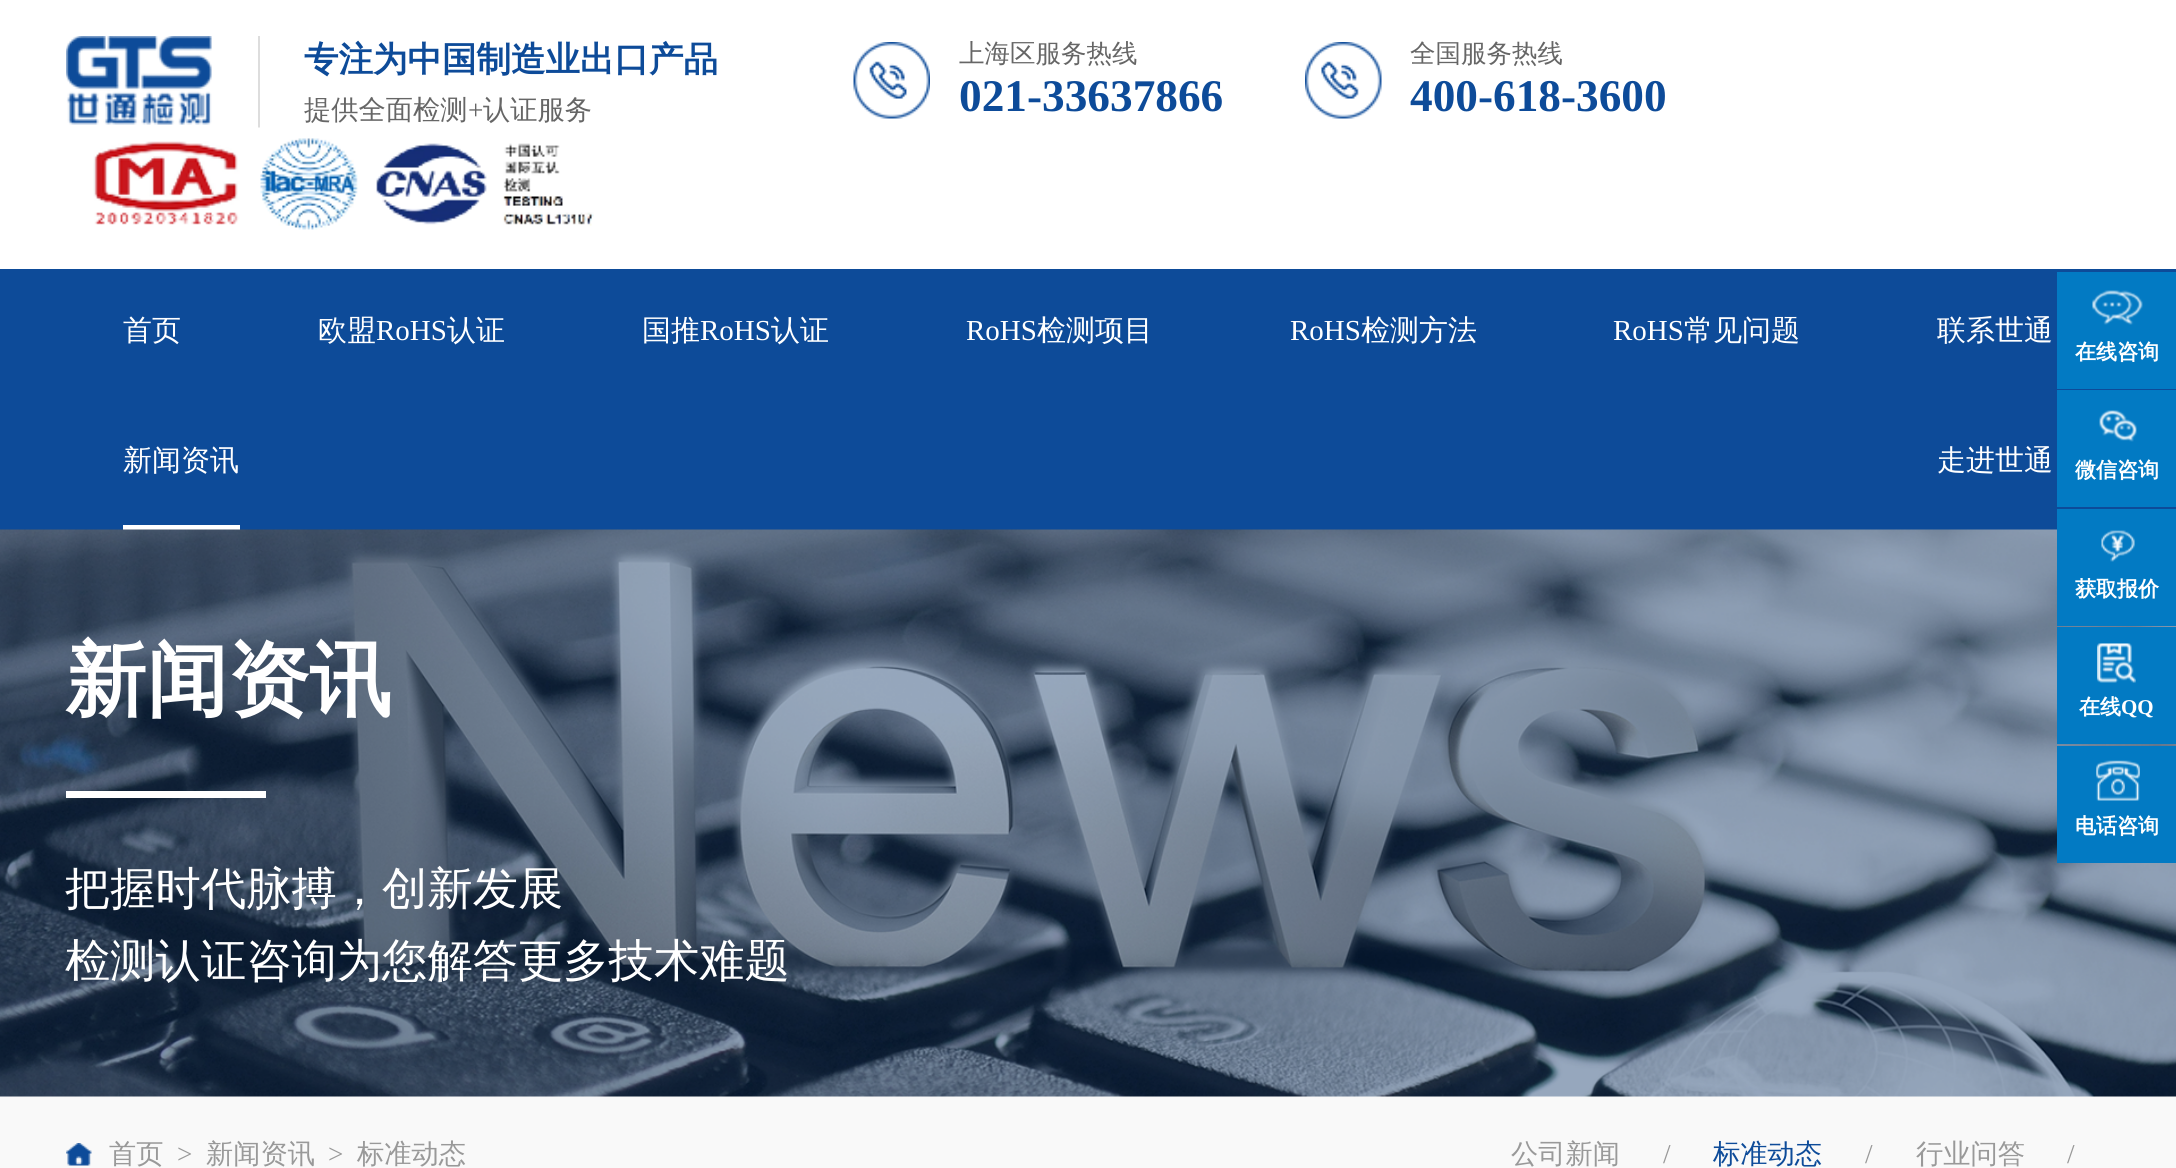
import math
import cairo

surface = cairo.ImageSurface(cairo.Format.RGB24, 2176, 1168)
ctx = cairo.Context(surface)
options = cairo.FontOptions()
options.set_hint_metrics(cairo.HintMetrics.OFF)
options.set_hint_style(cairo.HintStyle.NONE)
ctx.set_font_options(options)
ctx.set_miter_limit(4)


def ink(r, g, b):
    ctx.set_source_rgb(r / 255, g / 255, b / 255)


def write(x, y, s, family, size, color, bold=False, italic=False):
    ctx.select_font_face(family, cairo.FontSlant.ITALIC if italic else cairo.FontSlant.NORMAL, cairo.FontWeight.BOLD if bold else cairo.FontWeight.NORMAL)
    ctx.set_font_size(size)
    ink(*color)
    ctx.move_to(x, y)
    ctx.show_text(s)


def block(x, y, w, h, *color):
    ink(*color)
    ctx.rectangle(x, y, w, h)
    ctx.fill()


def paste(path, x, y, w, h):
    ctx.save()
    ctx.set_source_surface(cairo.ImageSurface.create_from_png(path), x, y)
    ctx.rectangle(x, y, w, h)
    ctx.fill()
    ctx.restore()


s1 = dict(family="WenQuanYi Zen Hei", size=34.5, color=(13, 75, 153), bold=True)
s2 = dict(family="WenQuanYi Zen Hei Medium", size=27.25, color=(102, 102, 102))
s3 = dict(family="Liberation Serif", size=27.25, color=(102, 102, 102))
s4 = dict(family="WenQuanYi Zen Hei Medium", size=25.5, color=(102, 102, 102))
s5 = dict(family="Liberation Serif", size=45.3, color=(13, 75, 153), bold=True)
s6 = dict(family="WenQuanYi Zen Hei Medium", size=29, color=(255, 255, 255))
s7 = dict(family="Liberation Serif", size=29, color=(255, 255, 255))
s8 = dict(family="WenQuanYi Zen Hei", size=21, color=(255, 255, 255), bold=True)
s9 = dict(family="Liberation Serif", size=21, color=(255, 255, 255), bold=True)
s10 = dict(family="WenQuanYi Zen Hei", size=81.5, color=(255, 255, 255), bold=True)
s11 = dict(family="WenQuanYi Zen Hei Medium", size=45.3, color=(255, 255, 255))
s12 = dict(family="WenQuanYi Zen Hei Medium", size=27.25, color=(153, 153, 153))
s13 = dict(family="Liberation Serif", size=27.25, color=(153, 153, 153))
s14 = dict(family="WenQuanYi Zen Hei Medium", size=27.25, color=(13, 75, 153))

ink(249, 249, 249)
ctx.paint()
block(0, 0, 2176, 269, 255, 255, 255)
block(258, 36, 2, 92, 221, 221, 221)
paste("pic1.png", 66, 36, 146, 89)
write(304, 71, "专注为中国制造业出口产品", **s1)
write(304, 119, "提供全面检测", **s2)
write(468, 119, "+", **s3)
write(483, 119, "认证服务", **s2)
paste("pic2.png", 853, 42, 77, 77)
write(959, 62, "上海区服务热线", **s4)
write(959, 111, "021-33637866", **s5)
paste("pic3.png", 1305, 42, 77, 77)
write(1410, 62, "全国服务热线", **s4)
write(1410, 111, "400-618-3600", **s5)
paste("pic4.png", 93, 127, 501, 103)
block(0, 269, 2176, 261, 13, 75, 153)
write(123, 340, "首页", **s6)
write(318, 340, "欧盟", **s6)
write(376, 340, "RoHS", **s7)
write(447, 340, "认证", **s6)
write(642, 340, "国推", **s6)
write(700, 340, "RoHS", **s7)
write(771, 340, "认证", **s6)
write(966, 340, "RoHS", **s7)
write(1037, 340, "检测项目", **s6)
write(1290, 340, "RoHS", **s7)
write(1361, 340, "检测方法", **s6)
write(1613, 340, "RoHS", **s7)
write(1684, 340, "常见问题", **s6)
write(1937, 340, "联系世通", **s6)
block(123, 525, 117, 5, 255, 255, 255)
write(123, 470, "新闻资讯", **s6)
write(1937, 470, "走进世通", **s6)
block(2057, 272, 119, 117, 2, 122, 195)
paste("pic5.png", 2092, 290, 51, 35)
write(2075, 359, "在线咨询", **s8)
block(2057, 390, 119, 117, 2, 122, 195)
paste("pic6.png", 2099, 410, 38, 32)
write(2075, 477, "微信咨询", **s8)
paste("pic10.png", 0, 529, 2176, 568)
block(2057, 509, 119, 117, 2, 122, 195)
paste("pic7.png", 2101, 530, 34, 32)
write(2075, 596, "获取报价", **s8)
block(2057, 627, 119, 117, 2, 122, 195)
paste("pic8.png", 2097, 643, 39, 40)
write(2079, 714, "在线", **s8)
write(2121, 714, "QQ", **s9)
block(2057, 746, 119, 117, 2, 122, 195)
paste("pic9.png", 2096, 760, 44, 41)
write(2075, 833, "电话咨询", **s8)
write(65, 708, "新闻资讯", **s10)
block(66, 791, 200, 7, 255, 255, 255)
write(65, 904, "把握时代脉搏，创新发展", **s11)
write(65, 976, "检测认证咨询为您解答更多技术难题", **s11)
paste("pic11.png", 66, 1143, 26, 23)
write(109, 1163, "首页", **s12)
write(177, 1163, ">", **s13)
write(206, 1163, "新闻资讯", **s12)
write(328, 1163, ">", **s13)
write(357, 1163, "标准动态", **s12)
write(1511, 1163, "公司新闻", **s12)
write(1663, 1163, "/", **s13)
write(1713, 1163, "标准动态", **s14)
write(1865, 1163, "/", **s13)
write(1916, 1163, "行业问答", **s12)
write(2067, 1163, "/", **s13)
surface.write_to_png("screenshot.png")
